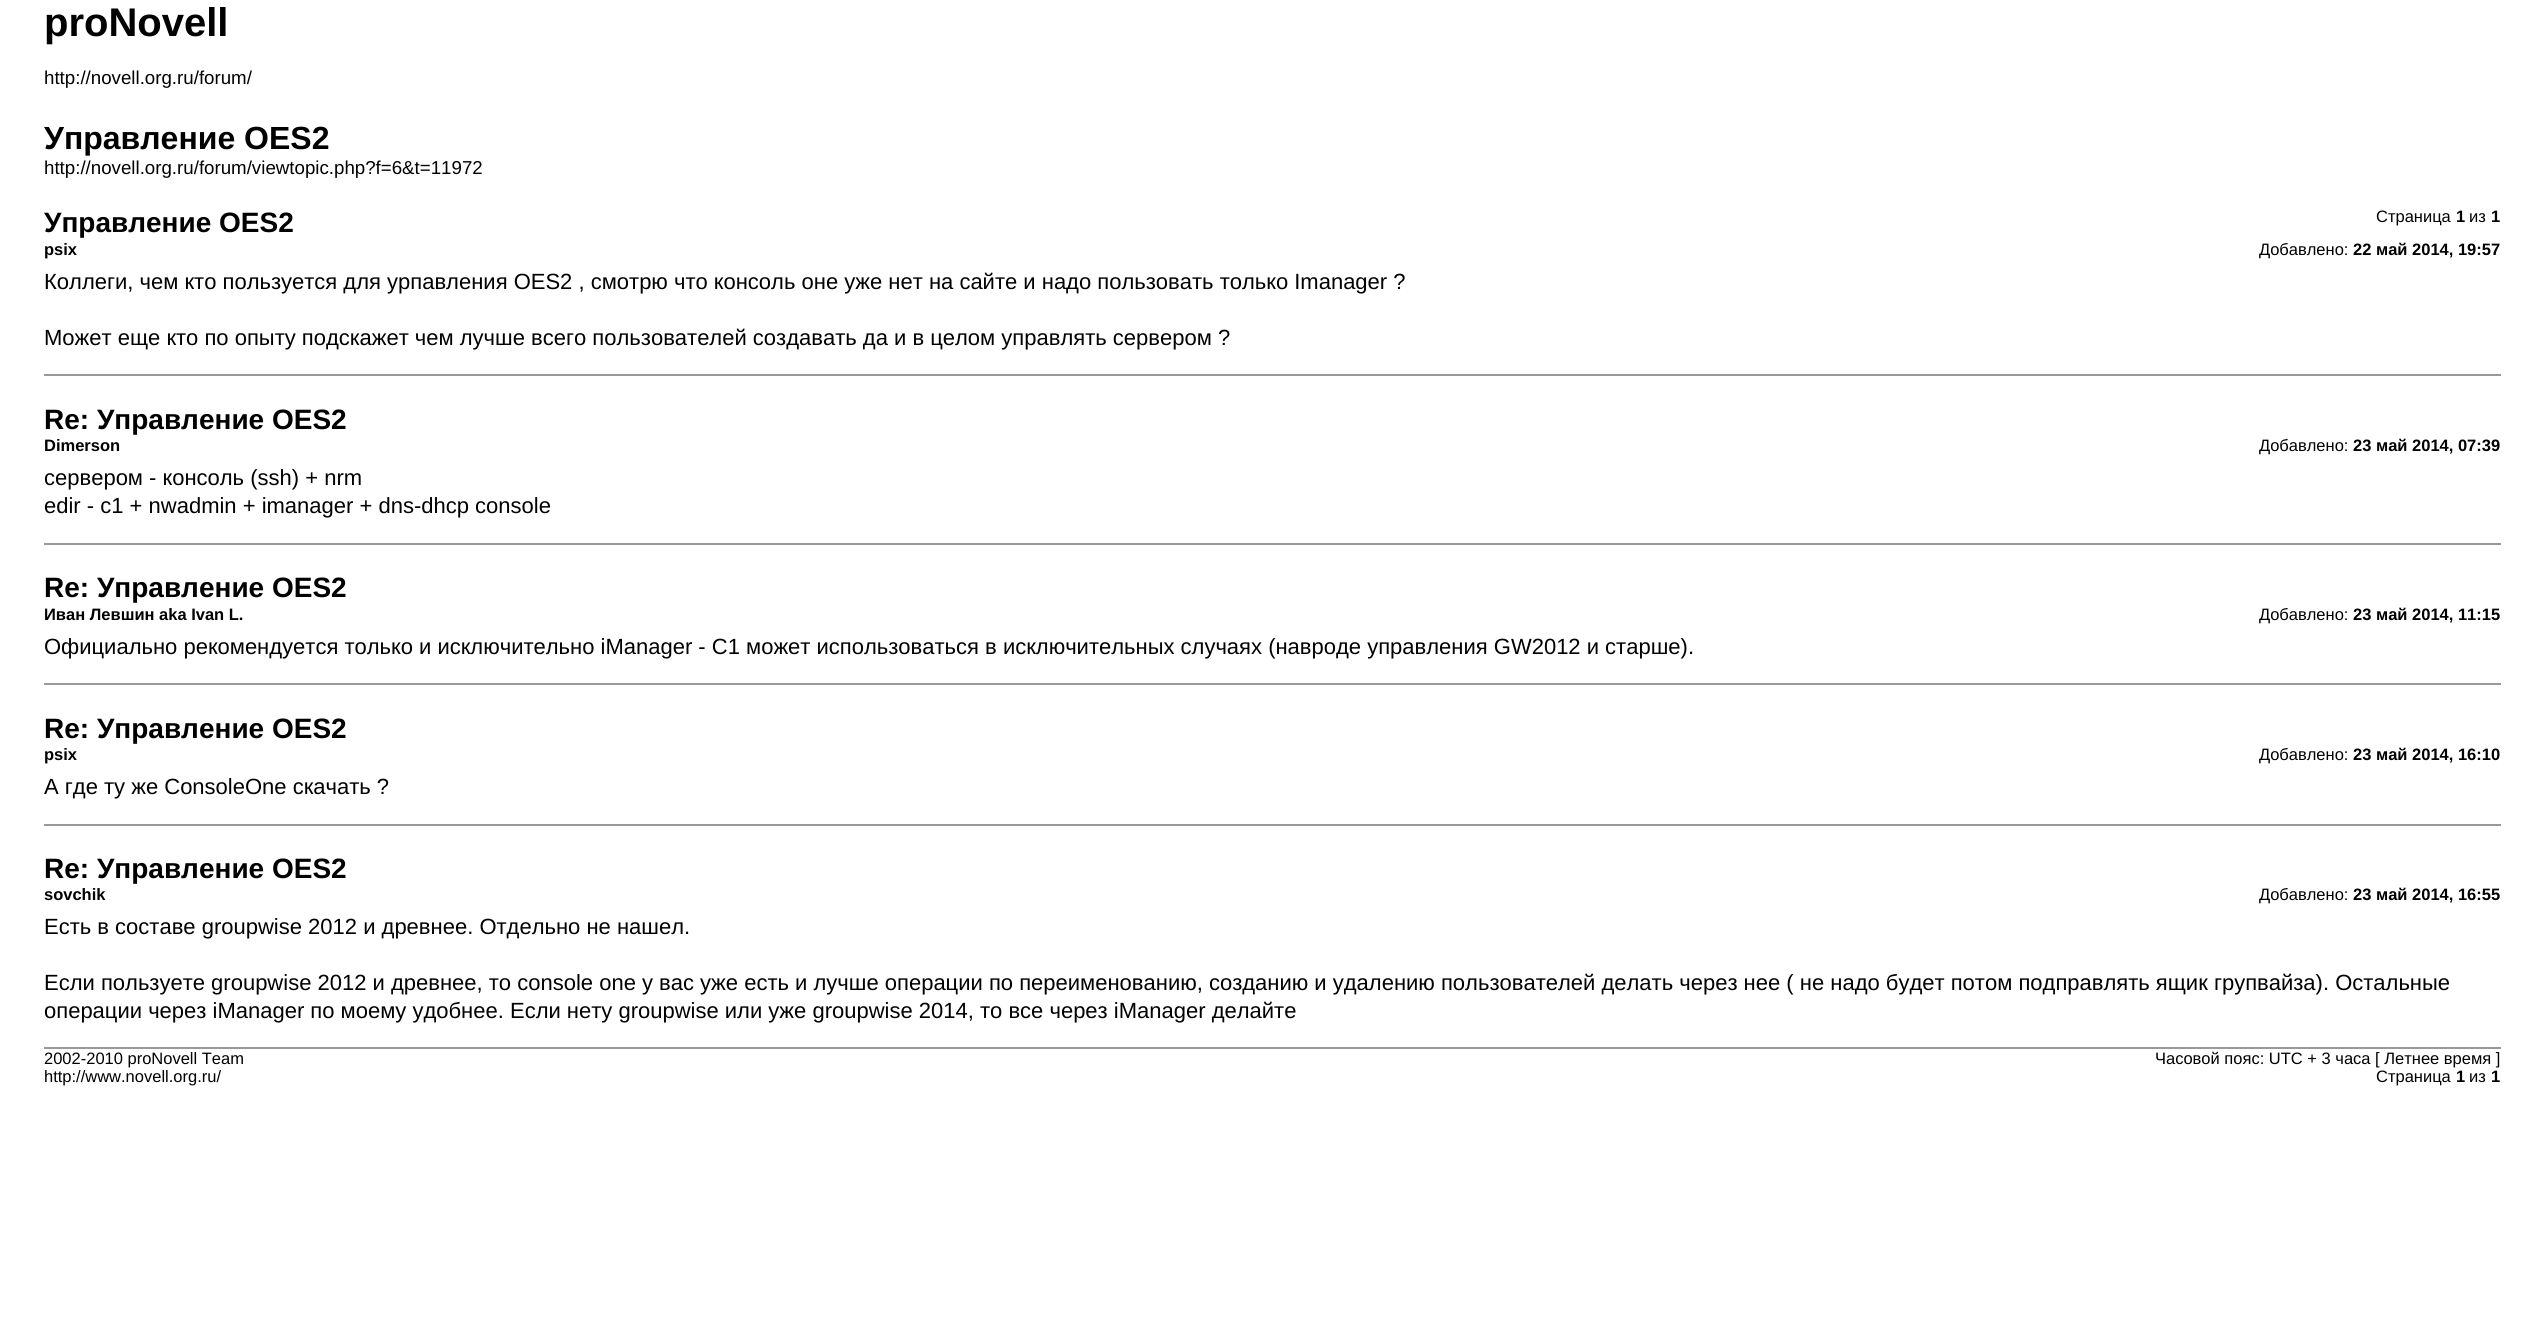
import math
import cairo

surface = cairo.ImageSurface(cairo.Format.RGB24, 2544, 1338)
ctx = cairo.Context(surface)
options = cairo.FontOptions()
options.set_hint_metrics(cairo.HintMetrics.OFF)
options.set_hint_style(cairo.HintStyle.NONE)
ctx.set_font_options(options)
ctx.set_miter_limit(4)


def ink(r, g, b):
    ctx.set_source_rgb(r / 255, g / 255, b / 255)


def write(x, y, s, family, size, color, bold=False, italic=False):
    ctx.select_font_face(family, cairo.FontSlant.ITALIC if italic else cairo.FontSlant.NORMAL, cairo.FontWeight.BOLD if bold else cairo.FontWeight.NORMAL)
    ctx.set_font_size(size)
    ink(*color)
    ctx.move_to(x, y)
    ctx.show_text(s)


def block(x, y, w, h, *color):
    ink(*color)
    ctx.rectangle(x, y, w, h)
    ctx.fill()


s1 = dict(family="Liberation Sans", size=40, color=(0, 0, 0), bold=True)
s2 = dict(family="Liberation Sans", size=18.7, color=(0, 0, 0))
s3 = dict(family="Liberation Sans", size=32, color=(0, 0, 0), bold=True)
s4 = dict(family="Liberation Sans", size=16.5, color=(0, 0, 0))
s5 = dict(family="Liberation Sans", size=16.5, color=(0, 0, 0), bold=True)
s6 = dict(family="Liberation Sans", size=28, color=(0, 0, 0), bold=True)
s7 = dict(family="Liberation Sans", size=22, color=(0, 0, 0))

ink(255, 255, 255)
ctx.paint()
write(44, 36, "proNovell", **s1)
write(44, 84, "http://novell.org.ru/forum/", **s2)
write(44, 149, "Управление OES2", **s3)
write(44, 174, "http://novell.org.ru/forum/viewtopic.php?f=6&t=11972", **s2)
write(2376, 222, "Страница", **s4)
write(2456, 222, "1", **s5)
write(2469, 222, "из", **s4)
write(2491, 222, "1", **s5)
write(44, 232, "Управление OES2", **s6)
write(44, 255, "psix", **s5)
write(2259, 255, "Добавлено:", **s4)
write(2353, 255, "22 май 2014, 19:57", **s5)
write(44, 289, "Коллеги, чем кто пользуется для урпавления OES2 , смотрю что консоль оне уже нет на сайте и надо пользовать только Imanager ?", **s7)
write(44, 345, "Может еще кто по опыту подскажет чем лучше всего пользователей создавать да и в целом управлять сервером ?", **s7)
block(44, 374, 2457, 2, 153, 153, 153)
write(44, 429, "Re: Управление OES2", **s6)
write(44, 451, "Dimerson", **s5)
write(2259, 451, "Добавлено:", **s4)
write(2353, 451, "23 май 2014, 07:39", **s5)
write(44, 485, "сервером - консоль (ssh) + nrm", **s7)
write(44, 513, "edir - c1 + nwadmin + imanager + dns-dhcp console", **s7)
block(44, 543, 2457, 2, 153, 153, 153)
write(44, 597, "Re: Управление OES2", **s6)
write(44, 620, "Иван Левшин aka Ivan L.", **s5)
write(2259, 620, "Добавлено:", **s4)
write(2353, 620, "23 май 2014, 11:15", **s5)
write(44, 654, "Официально рекомендуется только и исключительно iManager - C1 может использоваться в исключительных случаях (навроде управления GW2012 и старше).", **s7)
block(44, 683, 2457, 2, 153, 153, 153)
write(44, 738, "Re: Управление OES2", **s6)
write(44, 760, "psix", **s5)
write(2259, 760, "Добавлено:", **s4)
write(2353, 760, "23 май 2014, 16:10", **s5)
write(44, 794, "А где ту же ConsoleOne скачать ?", **s7)
block(44, 824, 2457, 2, 153, 153, 153)
write(44, 878, "Re: Управление OES2", **s6)
write(44, 900, "sovchik", **s5)
write(2259, 900, "Добавлено:", **s4)
write(2353, 900, "23 май 2014, 16:55", **s5)
write(44, 934, "Есть в составе groupwise 2012 и древнее. Отдельно не нашел.", **s7)
write(44, 990, "Если пользуете groupwise 2012 и древнее, то console one у вас уже есть и лучше операции по переименованию, созданию и удалению пользователей делать через нее ( не надо будет потом подправлять ящик групвайза). Остальные", **s7)
write(44, 1018, "операции через iManager по моему удобнее. Если нету groupwise или уже groupwise 2014, то все через iManager делайте", **s7)
block(44, 1047, 2457, 2, 153, 153, 153)
write(44, 1064, "2002-2010 proNovell Team", **s4)
write(44, 1082, "http://www.novell.org.ru/", **s4)
write(2155, 1064, "Часовой пояс: UTC + 3 часа [ Летнее время ]", **s4)
write(2376, 1082, "Страница", **s4)
write(2456, 1082, "1", **s5)
write(2469, 1082, "из", **s4)
write(2491, 1082, "1", **s5)
surface.write_to_png("screenshot.png")
